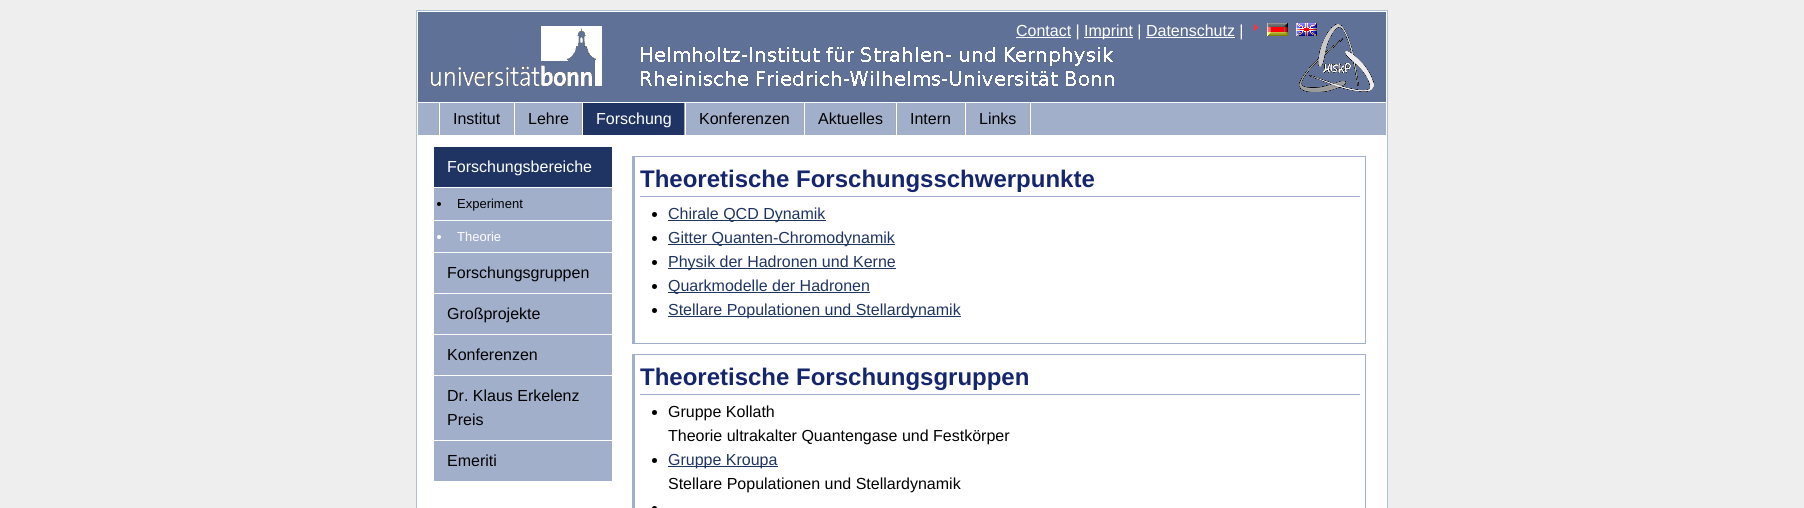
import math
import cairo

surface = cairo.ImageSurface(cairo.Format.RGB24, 1804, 508)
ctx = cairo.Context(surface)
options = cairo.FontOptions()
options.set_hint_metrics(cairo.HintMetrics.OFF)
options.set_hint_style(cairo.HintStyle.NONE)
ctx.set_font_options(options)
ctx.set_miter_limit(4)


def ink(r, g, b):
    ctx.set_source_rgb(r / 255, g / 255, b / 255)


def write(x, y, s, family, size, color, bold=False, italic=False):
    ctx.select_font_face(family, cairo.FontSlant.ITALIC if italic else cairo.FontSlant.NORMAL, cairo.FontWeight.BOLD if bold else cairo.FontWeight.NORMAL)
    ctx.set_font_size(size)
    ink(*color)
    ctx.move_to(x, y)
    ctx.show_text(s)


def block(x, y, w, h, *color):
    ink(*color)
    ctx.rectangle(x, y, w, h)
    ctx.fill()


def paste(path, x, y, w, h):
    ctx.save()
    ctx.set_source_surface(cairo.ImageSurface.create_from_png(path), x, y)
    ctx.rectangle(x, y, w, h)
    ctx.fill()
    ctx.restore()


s1 = dict(family="Liberation Sans", size=16, color=(255, 255, 255))
s2 = dict(family="Liberation Sans", size=16, color=(0, 0, 0))
s3 = dict(family="Liberation Sans", size=13, color=(0, 0, 0))
s4 = dict(family="Liberation Sans", size=13, color=(255, 255, 255))
s5 = dict(family="Liberation Sans", size=24, color=(22, 38, 110), bold=True)
s6 = dict(family="Liberation Sans", size=16, color=(32, 52, 99))

ink(238, 238, 238)
ctx.paint()
ink(255, 255, 255)
ctx.rectangle(416.5, 10.5, 971, 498)
ctx.fill_preserve()
ink(173, 193, 214)
ctx.set_line_width(1)
ctx.stroke()
block(418, 12, 968, 90, 96, 113, 152)
paste("pic1.png", 641, 24, 733, 68)
paste("pic2.png", 431, 26, 171, 60)
block(1016, 37, 55, 1, 255, 255, 255)
write(1016, 36, "Contact |", **s1)
block(1084, 37, 49, 1, 255, 255, 255)
write(1084, 36, "Imprint | Datenschutz |", **s1)
paste("pic3.png", 1254, 24, 4, 7)
paste("pic4.png", 1267, 23, 21, 13)
paste("pic5.png", 1296, 23, 21, 13)
block(1146, 37, 89, 1, 255, 255, 255)
block(418, 103, 968, 32, 162, 175, 203)
block(1030, 103, 1, 32, 255, 255, 255)
block(438, 103, 1, 32, 170, 170, 170)
block(513, 103, 1, 32, 170, 170, 170)
block(439, 103, 1, 32, 255, 255, 255)
write(453, 124, "Institut", **s2)
block(581, 103, 1, 32, 170, 170, 170)
block(514, 103, 1, 32, 255, 255, 255)
write(528, 124, "Lehre", **s2)
block(583, 103, 101, 32, 32, 52, 99)
block(684, 103, 1, 32, 170, 170, 170)
block(582, 103, 1, 32, 255, 255, 255)
write(596, 124, "Forschung", **s1)
block(803, 103, 1, 32, 170, 170, 170)
block(685, 103, 1, 32, 255, 255, 255)
write(699, 124, "Konferenzen", **s2)
block(895, 103, 1, 32, 170, 170, 170)
block(804, 103, 1, 32, 255, 255, 255)
write(818, 124, "Aktuelles", **s2)
block(964, 103, 1, 32, 170, 170, 170)
block(896, 103, 1, 32, 255, 255, 255)
write(910, 124, "Intern", **s2)
block(1029, 103, 1, 32, 170, 170, 170)
block(965, 103, 1, 32, 255, 255, 255)
write(979, 124, "Links", **s2)
block(434, 147, 178, 40, 32, 52, 99)
write(447, 172, "Forschungsbereiche", **s1)
block(434, 188, 178, 64, 162, 175, 203)
ink(0, 0, 0)
ctx.new_path()
ctx.arc(439, 204, 2, 0, 2 * math.pi)
ctx.fill()
write(457, 208, "Experiment", **s3)
block(434, 220, 178, 1, 255, 255, 255)
ctx.new_path()
ctx.arc(439, 237, 2, 0, 2 * math.pi)
ctx.fill()
write(457, 241, "Theorie", **s4)
block(434, 253, 178, 40, 162, 175, 203)
write(447, 278, "Forschungsgruppen", **s2)
block(434, 294, 178, 40, 162, 175, 203)
write(447, 319, "Großprojekte", **s2)
block(434, 335, 178, 40, 162, 175, 203)
write(447, 360, "Konferenzen", **s2)
block(434, 376, 178, 64, 162, 175, 203)
write(447, 401, "Dr. Klaus Erkelenz", **s2)
write(447, 425, "Preis", **s2)
block(434, 441, 178, 40, 162, 175, 203)
write(447, 466, "Emeriti", **s2)
block(632, 156, 734, 1, 162, 175, 203)
block(1365, 156, 1, 188, 162, 175, 203)
block(632, 343, 734, 1, 162, 175, 203)
block(632, 156, 3, 188, 162, 175, 203)
block(640, 196, 720, 1, 162, 175, 203)
write(640, 187, "Theoretische Forschungsschwerpunkte", **s5)
ink(0, 0, 0)
ctx.new_path()
ctx.arc(654.5, 214.5, 2.5, 0, 2 * math.pi)
ctx.fill()
block(668, 220, 158, 1, 32, 52, 99)
write(668, 219, "Chirale QCD Dynamik", **s6)
ink(0, 0, 0)
ctx.new_path()
ctx.arc(654.5, 238.5, 2.5, 0, 2 * math.pi)
ctx.fill()
block(668, 244, 227, 1, 32, 52, 99)
write(668, 243, "Gitter Quanten-Chromodynamik", **s6)
ink(0, 0, 0)
ctx.new_path()
ctx.arc(654.5, 262.5, 2.5, 0, 2 * math.pi)
ctx.fill()
block(668, 268, 228, 1, 32, 52, 99)
write(668, 267, "Physik der Hadronen und Kerne", **s6)
ink(0, 0, 0)
ctx.new_path()
ctx.arc(654.5, 286.5, 2.5, 0, 2 * math.pi)
ctx.fill()
block(668, 292, 202, 1, 32, 52, 99)
write(668, 291, "Quarkmodelle der Hadronen", **s6)
ink(0, 0, 0)
ctx.new_path()
ctx.arc(654.5, 310.5, 2.5, 0, 2 * math.pi)
ctx.fill()
block(668, 316, 293, 1, 32, 52, 99)
write(668, 315, "Stellare Populationen und Stellardynamik", **s6)
block(632, 354, 734, 1, 162, 175, 203)
block(1365, 354, 1, 154, 162, 175, 203)
block(632, 354, 3, 154, 162, 175, 203)
block(640, 394, 720, 1, 162, 175, 203)
write(640, 385, "Theoretische Forschungsgruppen", **s5)
ink(0, 0, 0)
ctx.new_path()
ctx.arc(654.5, 412.5, 2.5, 0, 2 * math.pi)
ctx.fill()
write(668, 417, "Gruppe Kollath", **s2)
write(668, 441, "Theorie ultrakalter Quantengase und Festkörper", **s2)
ctx.new_path()
ctx.arc(654.5, 460.5, 2.5, 0, 2 * math.pi)
ctx.fill()
block(668, 466, 110, 1, 32, 52, 99)
write(668, 465, "Gruppe Kroupa", **s6)
write(668, 489, "Stellare Populationen und Stellardynamik", **s2)
ctx.new_path()
ctx.arc(654.5, 508.5, 2.5, 0, 2 * math.pi)
ctx.fill()
surface.write_to_png("screenshot.png")
